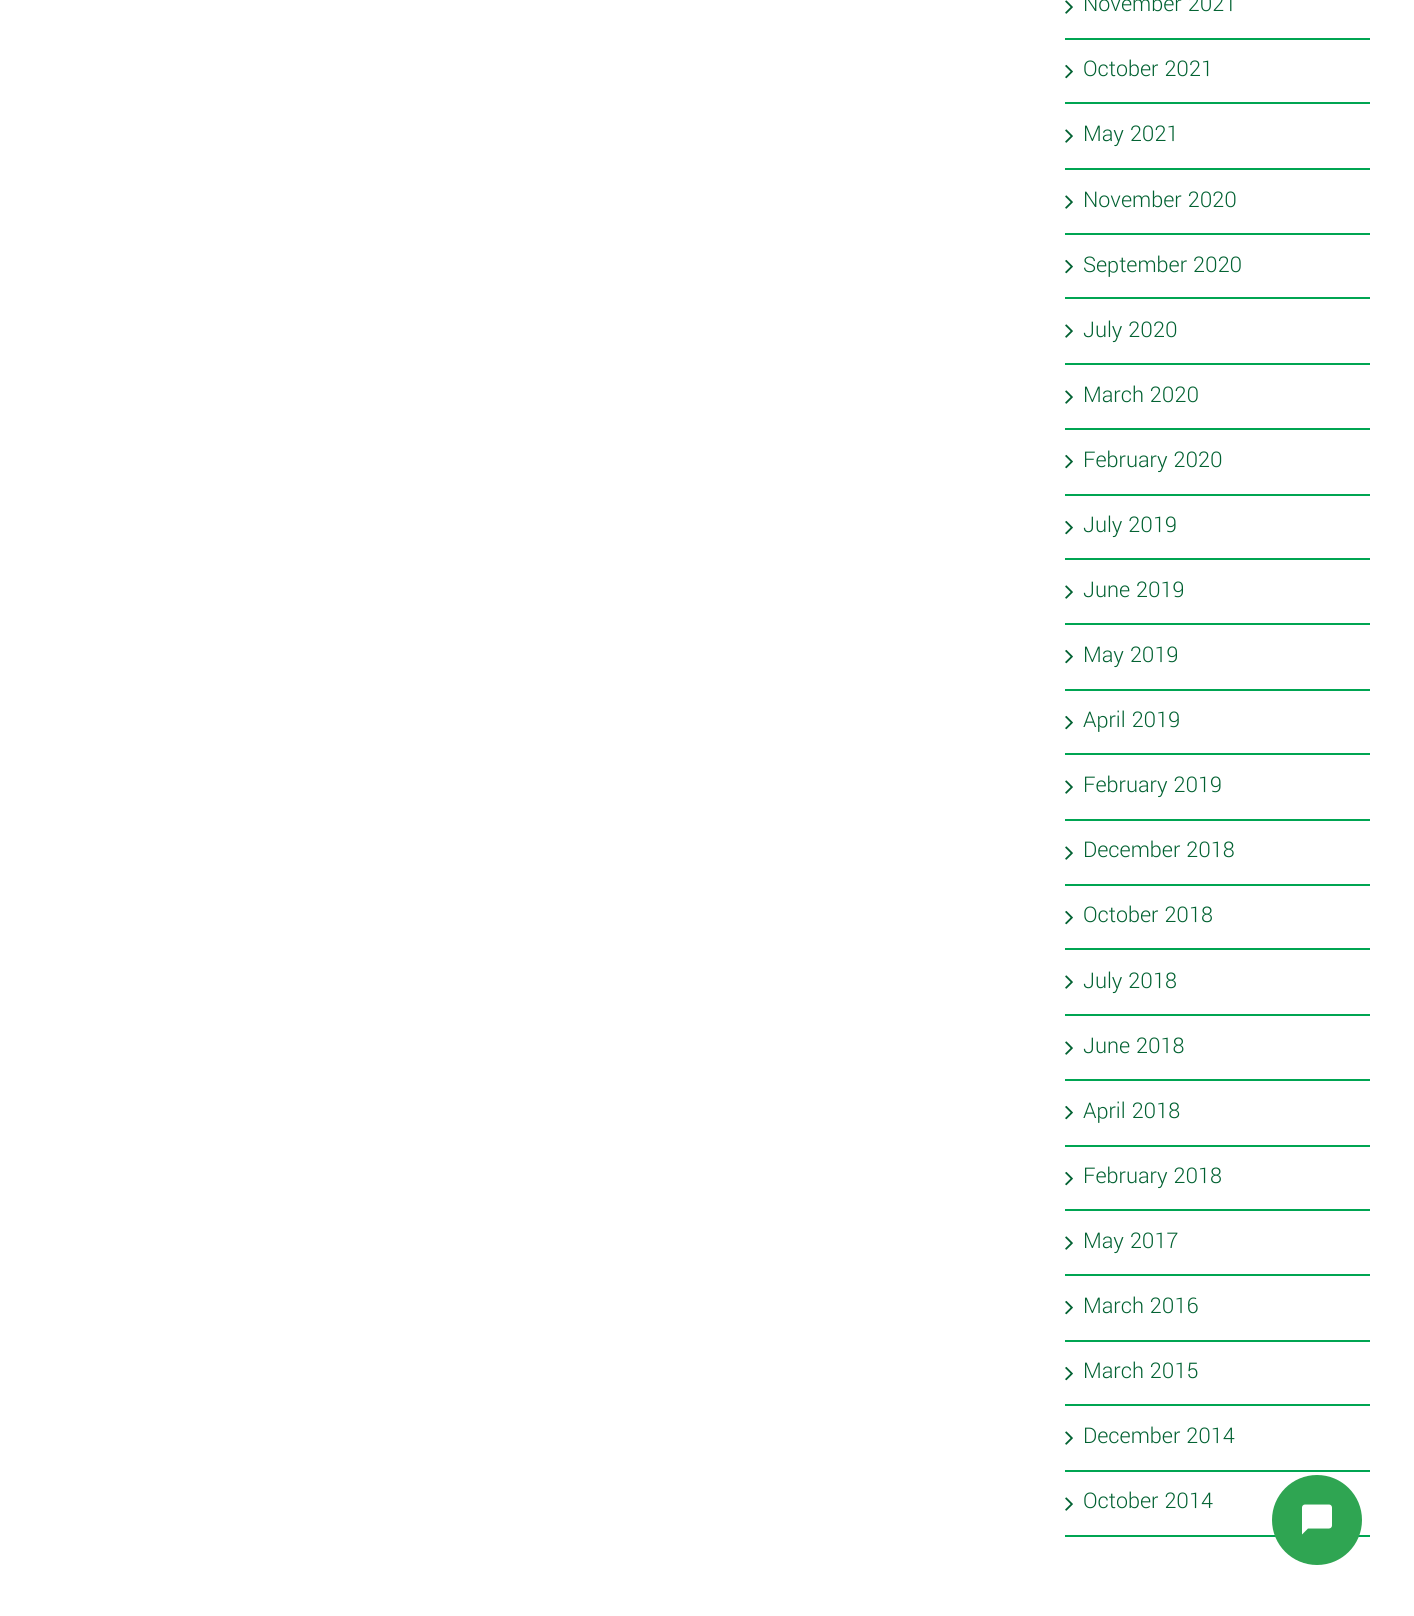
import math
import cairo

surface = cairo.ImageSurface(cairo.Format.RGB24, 1414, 1616)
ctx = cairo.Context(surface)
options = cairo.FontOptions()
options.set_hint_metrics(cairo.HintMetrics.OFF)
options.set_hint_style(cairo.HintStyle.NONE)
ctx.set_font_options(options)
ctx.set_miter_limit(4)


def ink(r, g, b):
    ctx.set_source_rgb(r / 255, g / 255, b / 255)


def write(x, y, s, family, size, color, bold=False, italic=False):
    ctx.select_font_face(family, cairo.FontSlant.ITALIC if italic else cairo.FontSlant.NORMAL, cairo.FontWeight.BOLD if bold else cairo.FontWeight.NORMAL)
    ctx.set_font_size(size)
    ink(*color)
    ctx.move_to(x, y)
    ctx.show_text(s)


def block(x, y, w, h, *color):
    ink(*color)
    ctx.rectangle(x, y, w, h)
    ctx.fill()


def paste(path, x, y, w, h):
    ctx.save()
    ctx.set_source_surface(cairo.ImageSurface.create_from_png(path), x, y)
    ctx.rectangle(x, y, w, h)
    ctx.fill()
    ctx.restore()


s1 = dict(family="Yantramanav Light", size=24, color=(1, 97, 49))

ink(255, 255, 255)
ctx.paint()
block(1065, 38, 305, 2, 0, 165, 82)
paste("pic1.png", 1065, 0, 8, 14)
write(1083, 11, "November 2021", **s1)
block(1065, 102, 305, 2, 0, 165, 82)
paste("pic2.png", 1065, 64, 8, 15)
write(1083, 76, "October 2021", **s1)
block(1065, 168, 305, 2, 0, 165, 82)
paste("pic1.png", 1065, 129, 8, 14)
write(1083, 141, "May 2021", **s1)
block(1065, 233, 305, 2, 0, 165, 82)
paste("pic1.png", 1065, 195, 8, 14)
write(1083, 207, "November 2020", **s1)
block(1065, 297, 305, 2, 0, 165, 82)
paste("pic2.png", 1065, 259, 8, 15)
write(1083, 272, "September 2020", **s1)
block(1065, 363, 305, 2, 0, 165, 82)
paste("pic1.png", 1065, 324, 8, 14)
write(1083, 337, "July 2020", **s1)
block(1065, 428, 305, 2, 0, 165, 82)
paste("pic1.png", 1065, 390, 8, 14)
write(1083, 402, "March 2020", **s1)
block(1065, 494, 305, 2, 0, 165, 82)
paste("pic2.png", 1065, 454, 8, 15)
write(1083, 467, "February 2020", **s1)
block(1065, 558, 305, 2, 0, 165, 82)
paste("pic2.png", 1065, 520, 8, 15)
write(1083, 532, "July 2019", **s1)
block(1065, 623, 305, 2, 0, 165, 82)
paste("pic1.png", 1065, 585, 8, 14)
write(1083, 597, "June 2019", **s1)
block(1065, 689, 305, 2, 0, 165, 82)
paste("pic2.png", 1065, 649, 8, 15)
write(1083, 662, "May 2019", **s1)
block(1065, 753, 305, 2, 0, 165, 82)
paste("pic2.png", 1065, 715, 8, 15)
write(1083, 727, "April 2019", **s1)
block(1065, 819, 305, 2, 0, 165, 82)
paste("pic1.png", 1065, 780, 8, 14)
write(1083, 792, "February 2019", **s1)
block(1065, 884, 305, 2, 0, 165, 82)
paste("pic1.png", 1065, 846, 8, 14)
write(1083, 857, "December 2018", **s1)
block(1065, 948, 305, 2, 0, 165, 82)
paste("pic2.png", 1065, 910, 8, 15)
write(1083, 922, "October 2018", **s1)
block(1065, 1014, 305, 2, 0, 165, 82)
paste("pic1.png", 1065, 975, 8, 14)
write(1083, 988, "July 2018", **s1)
block(1065, 1079, 305, 2, 0, 165, 82)
paste("pic1.png", 1065, 1041, 8, 14)
write(1083, 1053, "June 2018", **s1)
block(1065, 1145, 305, 2, 0, 165, 82)
paste("pic2.png", 1065, 1105, 8, 15)
write(1083, 1118, "April 2018", **s1)
block(1065, 1209, 305, 2, 0, 165, 82)
paste("pic2.png", 1065, 1171, 8, 15)
write(1083, 1183, "February 2018", **s1)
block(1065, 1274, 305, 2, 0, 165, 82)
paste("pic1.png", 1065, 1236, 8, 14)
write(1083, 1248, "May 2017", **s1)
block(1065, 1340, 305, 2, 0, 165, 82)
paste("pic2.png", 1065, 1300, 8, 15)
write(1083, 1313, "March 2016", **s1)
block(1065, 1404, 305, 2, 0, 165, 82)
paste("pic2.png", 1065, 1366, 8, 15)
write(1083, 1378, "March 2015", **s1)
block(1065, 1470, 305, 2, 0, 165, 82)
paste("pic1.png", 1065, 1431, 8, 14)
write(1083, 1443, "December 2014", **s1)
block(1065, 1535, 305, 2, 0, 165, 82)
paste("pic1.png", 1065, 1497, 8, 14)
write(1083, 1508, "October 2014", **s1)
ink(47, 165, 82)
ctx.new_path()
ctx.arc(1317, 1520, 45, 0, 2 * math.pi)
ctx.fill()
paste("pic3.png", 1302, 1504, 30, 31)
surface.write_to_png("screenshot.png")
